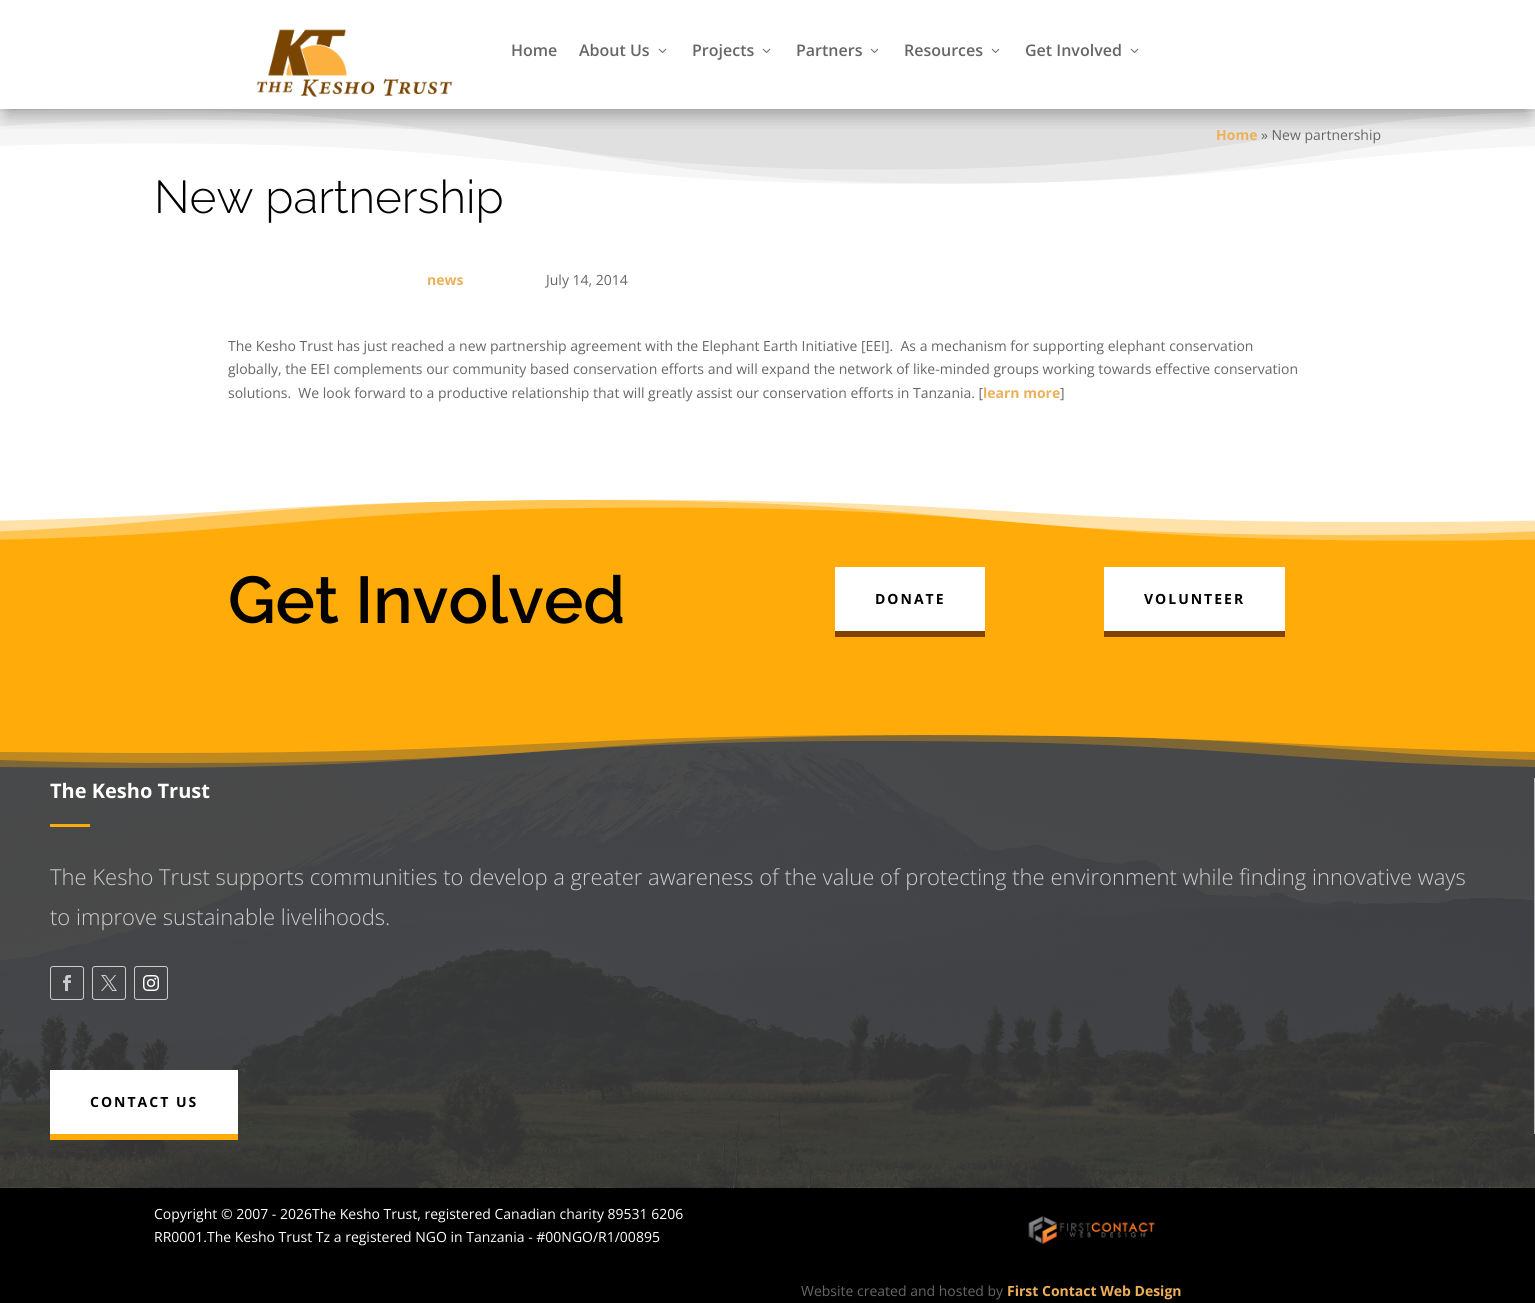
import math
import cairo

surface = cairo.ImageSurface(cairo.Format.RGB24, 1535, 1303)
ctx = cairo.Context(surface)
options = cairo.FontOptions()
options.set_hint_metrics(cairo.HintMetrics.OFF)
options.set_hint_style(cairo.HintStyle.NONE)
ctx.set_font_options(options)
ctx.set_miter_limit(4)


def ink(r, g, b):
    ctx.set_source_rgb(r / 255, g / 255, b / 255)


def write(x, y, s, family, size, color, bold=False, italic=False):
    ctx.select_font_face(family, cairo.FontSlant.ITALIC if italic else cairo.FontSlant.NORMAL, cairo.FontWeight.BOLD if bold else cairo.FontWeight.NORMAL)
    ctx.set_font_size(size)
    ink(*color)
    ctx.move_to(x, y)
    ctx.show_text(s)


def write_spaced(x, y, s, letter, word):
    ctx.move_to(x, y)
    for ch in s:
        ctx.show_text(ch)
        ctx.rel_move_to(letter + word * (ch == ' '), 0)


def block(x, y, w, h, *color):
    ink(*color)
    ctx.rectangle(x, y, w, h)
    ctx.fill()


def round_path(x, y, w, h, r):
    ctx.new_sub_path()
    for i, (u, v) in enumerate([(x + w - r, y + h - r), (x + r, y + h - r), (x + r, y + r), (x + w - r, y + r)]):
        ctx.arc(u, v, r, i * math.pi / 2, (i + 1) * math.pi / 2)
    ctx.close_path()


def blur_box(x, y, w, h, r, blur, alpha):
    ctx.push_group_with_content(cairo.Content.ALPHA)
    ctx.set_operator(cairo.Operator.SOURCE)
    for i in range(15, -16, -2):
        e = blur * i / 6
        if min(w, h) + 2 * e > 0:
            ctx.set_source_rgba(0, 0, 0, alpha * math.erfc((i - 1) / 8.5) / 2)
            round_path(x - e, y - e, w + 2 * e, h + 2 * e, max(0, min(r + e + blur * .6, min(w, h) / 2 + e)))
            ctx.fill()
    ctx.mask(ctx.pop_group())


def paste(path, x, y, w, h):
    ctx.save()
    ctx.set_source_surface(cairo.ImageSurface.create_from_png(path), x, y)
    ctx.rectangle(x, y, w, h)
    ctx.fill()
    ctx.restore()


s1 = dict(family="Open Sans SemiBold", size=16, color=(102, 102, 102))
s2 = dict(family="Open Sans", size=14, color=(237, 176, 89), bold=True)
s3 = dict(family="Open Sans", size=14, color=(102, 102, 102))
s4 = dict(family="Raleway Thin", size=46, color=(0, 0, 0))
s5 = dict(family="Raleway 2 Thin", size=66, color=(0, 0, 0))
s6 = dict(family="Open Sans", size=20, color=(255, 255, 255), bold=True)
s7 = dict(family="Open Sans Light", size=22, color=(204, 204, 204))
s8 = dict(family="Open Sans", size=14, color=(255, 255, 255))

ink(255, 255, 255)
ctx.paint()
paste("pic3.png", 0, 109, 1535, 75)
ctx.save()
ctx.rectangle(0, 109, 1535, 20)
ctx.clip()
ink(0, 0, 0)
blur_box(6, 18, 1523, 97, 0, 9, 0.3)
ctx.restore()
paste("pic1.png", 256, 29, 197, 69)
write(511, 56, "Home", **s1)
write(579, 56, "About Us", **s1)
paste("pic2.png", 658, 48, 9, 5)
write(692, 56, "Projects", **s1)
paste("pic2.png", 762, 48, 9, 5)
write(796, 56, "Partners", **s1)
paste("pic2.png", 870, 48, 9, 5)
write(904, 56, "Resources", **s1)
paste("pic2.png", 991, 48, 9, 5)
write(1025, 56, "Get Involved", **s1)
paste("pic2.png", 1130, 48, 9, 5)
write(1216, 140, "Home", **s2)
write(1261, 140, "» New partnership", **s3)
write(154, 213, "New partnership", **s4)
write(427, 285, "news", **s2)
write(546, 285, "July 14, 2014", **s3)
write(228, 351, "The Kesho Trust has just reached a new partnership agreement with the Elephant Earth Initiative [EEI].  As a mechanism for supporting elephant conservation", **s3)
write(228, 374, "globally, the EEI complements our community based conservation efforts and will expand the network of like-minded groups working towards effective conservation", **s3)
write(228, 398, "solutions.  We look forward to a productive relationship that will greatly assist our conservation efforts in Tanzania. [", **s3)
write(983, 398, "learn more", **s2)
write(1060, 398, "]", **s3)
block(0, 499, 1535, 225, 255, 172, 10)
paste("pic4.png", 0, 486, 1535, 55)
write(228, 623, "Get Involved", **s5)
block(835, 631, 150, 6, 129, 65, 0)
block(835, 567, 150, 64, 255, 255, 255)
ctx.select_font_face("Open Sans", cairo.FontSlant.NORMAL, cairo.FontWeight.BOLD)
ctx.set_font_size(14)
ink(0, 0, 0)
write_spaced(875, 604, "DONATE", 2, 0)
block(1104, 631, 181, 6, 129, 65, 0)
block(1104, 567, 181, 64, 255, 255, 255)
ink(0, 0, 0)
write_spaced(1144, 604, "VOLUNTEER", 2, 0)
paste("pic5.png", 0, 735, 1535, 453)
ctx.set_source_rgba(1, 0.675, 0.039, 0.3)
ctx.new_path()
ctx.move_to(1535, 767)
ctx.curve_to(1260, 762, 1222, 741, 881, 741)
ctx.curve_to(497, 741, 497, 768, 113, 768)
ctx.line_to(0, 767)
ctx.line_to(0, 724)
ctx.line_to(1535, 724)
ctx.close_path()
ctx.fill()
ctx.set_source_rgba(1, 0.675, 0.039, 0.5)
ctx.new_path()
ctx.move_to(0, 760)
ctx.curve_to(52, 762, 113, 763, 190, 763)
ctx.curve_to(574, 763, 574, 735, 957, 735)
ctx.curve_to(1265, 735, 1326, 753, 1535, 760)
ctx.line_to(1535, 724)
ctx.line_to(0, 724)
ctx.close_path()
ctx.fill()
ink(255, 172, 10)
ctx.new_path()
ctx.move_to(1535, 752)
ctx.curve_to(1294, 748, 1244, 735, 919, 735)
ctx.curve_to(535, 735, 535, 753, 152, 753)
ctx.curve_to(93, 753, 43, 752, 0, 752)
ctx.line_to(0, 724)
ctx.line_to(1535, 724)
ctx.close_path()
ctx.fill()
block(1534, 778, 1, 356, 177, 177, 177)
write(50, 798, "The Kesho Trust", **s6)
block(50, 824, 40, 3, 255, 172, 10)
write(50, 885, "The Kesho Trust supports communities to develop a greater awareness of the value of protecting the environment while finding innovative ways", **s7)
write(50, 925, "to improve sustainable livelihoods.", **s7)
round_path(50.5, 966.5, 33, 33, 2.5)
ctx.set_line_width(1)
ctx.stroke()
paste("pic6.png", 63, 975, 8, 16)
round_path(92.5, 966.5, 33, 33, 2.5)
ctx.stroke()
paste("pic7.png", 101, 975, 16, 16)
round_path(134.5, 966.5, 33, 33, 2.5)
ctx.stroke()
paste("pic8.png", 143, 975, 16, 16)
block(50, 1134, 188, 6, 255, 172, 10)
block(50, 1070, 188, 64, 255, 255, 255)
ctx.select_font_face("Open Sans", cairo.FontSlant.NORMAL, cairo.FontWeight.BOLD)
ctx.set_font_size(14)
ink(0, 0, 0)
write_spaced(90, 1107, "CONTACT US", 2, 0)
block(0, 1188, 1535, 115, 0, 0, 0)
write(154, 1219, "Copyright © 2007 - 2026The Kesho Trust, registered Canadian charity 89531 6206", **s8)
write(154, 1242, "RR0001.The Kesho Trust Tz a registered NGO in Tanzania - #00NGO/R1/00895", **s8)
paste("pic9.png", 1028, 1216, 127, 29)
write(801, 1296, "Website created and hosted by", **s3)
write(1007, 1296, "First Contact Web Design", **s2)
surface.write_to_png("screenshot.png")
